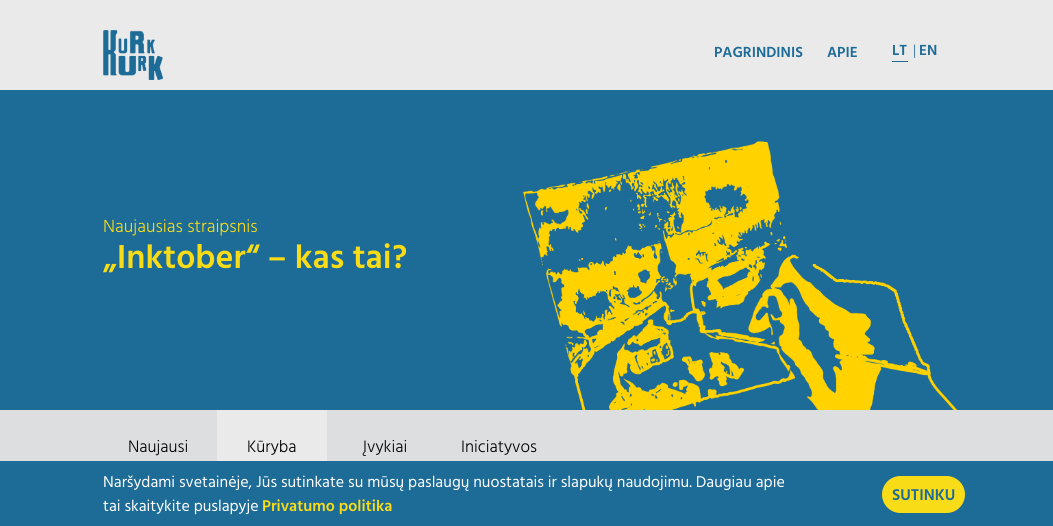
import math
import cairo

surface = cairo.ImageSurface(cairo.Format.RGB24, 1053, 526)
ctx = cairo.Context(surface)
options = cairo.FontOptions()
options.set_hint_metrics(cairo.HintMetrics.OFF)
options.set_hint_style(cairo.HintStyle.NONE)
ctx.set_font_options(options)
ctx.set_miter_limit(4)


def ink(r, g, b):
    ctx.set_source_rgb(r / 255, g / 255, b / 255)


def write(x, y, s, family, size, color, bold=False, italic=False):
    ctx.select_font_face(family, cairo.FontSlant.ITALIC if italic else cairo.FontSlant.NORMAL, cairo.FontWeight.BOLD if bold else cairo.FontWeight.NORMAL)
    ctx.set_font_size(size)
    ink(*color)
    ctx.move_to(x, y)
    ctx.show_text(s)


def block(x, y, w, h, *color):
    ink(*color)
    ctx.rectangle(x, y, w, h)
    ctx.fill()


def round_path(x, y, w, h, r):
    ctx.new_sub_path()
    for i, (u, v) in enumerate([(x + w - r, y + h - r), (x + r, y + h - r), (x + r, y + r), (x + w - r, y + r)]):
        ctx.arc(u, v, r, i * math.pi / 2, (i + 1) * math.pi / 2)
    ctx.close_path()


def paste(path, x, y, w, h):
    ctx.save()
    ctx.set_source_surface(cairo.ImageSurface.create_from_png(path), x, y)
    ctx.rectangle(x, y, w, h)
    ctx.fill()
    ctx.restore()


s1 = dict(family="Hind Madurai SemiBold", size=15, color=(29, 107, 151))
s2 = dict(family="Hind Madurai Light", size=15, color=(29, 107, 151))
s3 = dict(family="Hind Madurai Light", size=18, color=(248, 220, 23))
s4 = dict(family="Hind Madurai SemiBold", size=34, color=(248, 220, 23))
s5 = dict(family="Hind Madurai Light", size=17, color=(0, 0, 0))
s6 = dict(family="Hind Madurai", size=16, color=(255, 255, 255))
s7 = dict(family="Hind Madurai SemiBold", size=16, color=(248, 220, 23))
s8 = dict(family="Hind Madurai SemiBold", size=16, color=(29, 107, 151))

ink(234, 234, 234)
ctx.paint()
paste("pic1.png", 103, 30, 60, 50)
write(714, 57, "PAGRINDINIS", **s1)
write(827, 57, "APIE", **s1)
write(892, 55, "LT", **s1)
block(892, 61, 16, 1, 29, 107, 151)
write(913, 55, "|", **s2)
write(919, 55, "EN", **s1)
block(0, 90, 1053, 320, 29, 107, 151)
write(103, 232, "Naujausias straipsnis", **s3)
write(103, 268, "„Inktober“ – kas tai?", **s4)
paste("pic2.png", 523, 141, 435, 269)
block(0, 410, 1053, 51, 220, 222, 223)
write(128, 452, "Naujausi", **s5)
block(217, 410, 110, 51, 234, 234, 234)
write(247, 452, "Kūryba", **s5)
write(363, 452, "Įvykiai", **s5)
write(461, 452, "Iniciatyvos", **s5)
block(0, 461, 1053, 65, 29, 107, 151)
write(103, 487, "Naršydami svetainėje, Jūs sutinkate su mūsų paslaugų nuostatais ir slapukų naudojimu. Daugiau apie", **s6)
write(103, 511, "tai skaitykite puslapyje", **s6)
write(262, 511, "Privatumo politika", **s7)
round_path(882, 476, 83, 37, 18.5)
ctx.fill()
write(892, 500, "SUTINKU", **s8)
surface.write_to_png("screenshot.png")
